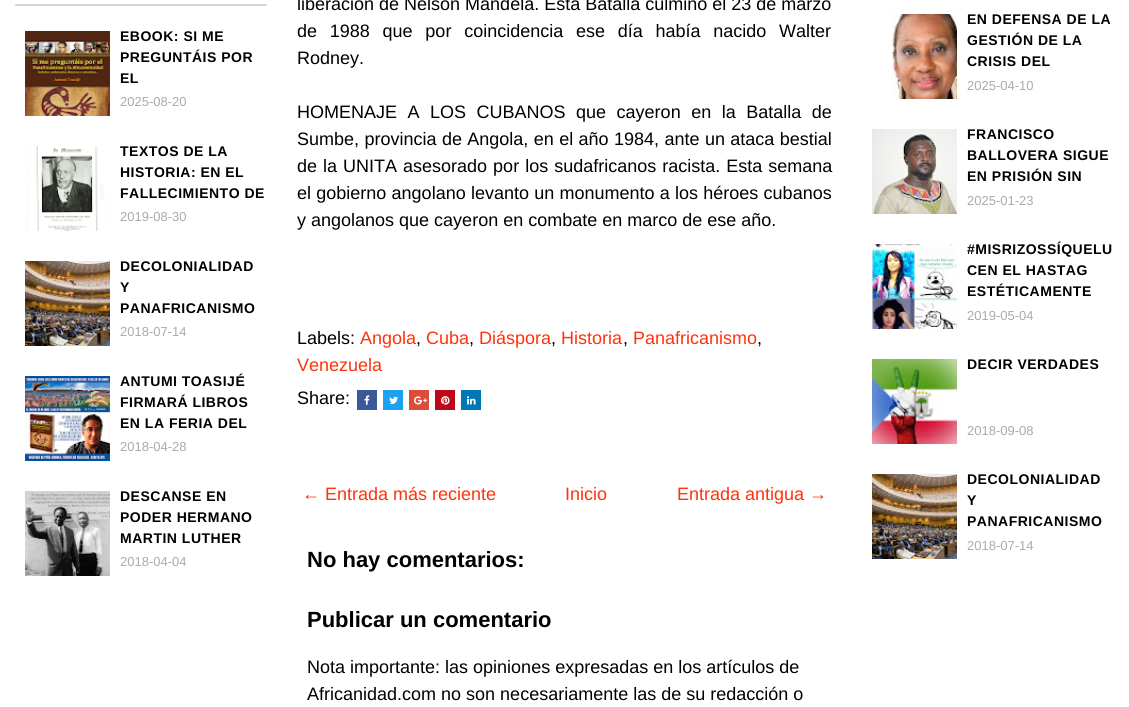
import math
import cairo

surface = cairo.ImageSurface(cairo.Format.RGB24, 1129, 707)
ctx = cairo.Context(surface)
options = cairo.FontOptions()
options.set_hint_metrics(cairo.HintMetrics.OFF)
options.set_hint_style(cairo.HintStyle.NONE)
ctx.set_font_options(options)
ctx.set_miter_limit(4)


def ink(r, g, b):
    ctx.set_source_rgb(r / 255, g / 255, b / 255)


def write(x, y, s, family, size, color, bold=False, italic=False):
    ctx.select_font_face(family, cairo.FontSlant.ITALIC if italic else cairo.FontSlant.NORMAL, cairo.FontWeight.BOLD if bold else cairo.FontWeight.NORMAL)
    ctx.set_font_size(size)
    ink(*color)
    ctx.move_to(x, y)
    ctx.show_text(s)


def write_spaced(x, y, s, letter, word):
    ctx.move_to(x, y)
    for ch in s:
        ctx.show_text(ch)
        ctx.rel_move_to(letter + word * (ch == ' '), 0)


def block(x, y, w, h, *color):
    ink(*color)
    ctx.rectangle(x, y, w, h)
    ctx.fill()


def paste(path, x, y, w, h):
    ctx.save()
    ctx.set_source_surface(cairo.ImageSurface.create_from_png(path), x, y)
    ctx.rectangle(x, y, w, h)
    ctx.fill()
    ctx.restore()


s1 = dict(family="Liberation Sans", size=13, color=(171, 171, 171))
s2 = dict(family="Liberation Sans", size=18, color=(0, 0, 0))
s3 = dict(family="Liberation Sans", size=18, color=(255, 50, 9))
s4 = dict(family="Liberation Sans", size=22, color=(0, 0, 0), bold=True)

ink(255, 255, 255)
ctx.paint()
block(15, 4, 252, 2, 215, 215, 215)
paste("pic1.png", 25, 31, 85, 85)
ctx.select_font_face("Liberation Sans", cairo.FontSlant.NORMAL, cairo.FontWeight.BOLD)
ctx.set_font_size(14)
ink(0, 0, 0)
write_spaced(120, 41, "EBOOK: SI ME", 0.5, 0)
write_spaced(120, 62, "PREGUNTÁIS POR", 0.5, 0)
write_spaced(120, 83, "EL", 0.5, 0)
write(120, 106, "2025-08-20", **s1)
paste("pic2.png", 25, 146, 83, 85)
ctx.select_font_face("Liberation Sans", cairo.FontSlant.NORMAL, cairo.FontWeight.BOLD)
ctx.set_font_size(14)
ink(0, 0, 0)
write_spaced(120, 156, "TEXTOS DE LA", 0.5, 0)
write_spaced(120, 177, "HISTORIA: EN EL", 0.5, 0)
write_spaced(120, 198, "FALLECIMIENTO DE", 0.5, 0)
write(120, 221, "2019-08-30", **s1)
paste("pic3.png", 25, 261, 85, 85)
ctx.select_font_face("Liberation Sans", cairo.FontSlant.NORMAL, cairo.FontWeight.BOLD)
ctx.set_font_size(14)
ink(0, 0, 0)
write_spaced(120, 271, "DECOLONIALIDAD", 0.5, 0)
write_spaced(120, 292, "Y", 0.5, 0)
write_spaced(120, 313, "PANAFRICANISMO", 0.5, 0)
write(120, 336, "2018-07-14", **s1)
paste("pic4.png", 25, 376, 85, 85)
ctx.select_font_face("Liberation Sans", cairo.FontSlant.NORMAL, cairo.FontWeight.BOLD)
ctx.set_font_size(14)
ink(0, 0, 0)
write_spaced(120, 386, "ANTUMI TOASIJÉ", 0.5, 0)
write_spaced(120, 407, "FIRMARÁ LIBROS", 0.5, 0)
write_spaced(120, 428, "EN LA FERIA DEL", 0.5, 0)
write(120, 451, "2018-04-28", **s1)
paste("pic5.png", 25, 491, 85, 85)
ctx.select_font_face("Liberation Sans", cairo.FontSlant.NORMAL, cairo.FontWeight.BOLD)
ctx.set_font_size(14)
ink(0, 0, 0)
write_spaced(120, 501, "DESCANSE EN", 0.5, 0)
write_spaced(120, 522, "PODER HERMANO", 0.5, 0)
write_spaced(120, 543, "MARTIN LUTHER", 0.5, 0)
write(120, 566, "2018-04-04", **s1)
write(297, 10, "liberación de Nelson Mandela. Esta Batalla culmino el 23 de marzo", **s2)
write_spaced(297, 37, "de 1988 que por coincidencia ese día había nacido Walter", 0, 7.75)
write(297, 64, "Rodney.", **s2)
write_spaced(297, 118, "HOMENAJE A LOS CUBANOS que cayeron en la Batalla de", 0, 5.5)
write_spaced(297, 145, "Sumbe, provincia de Angola, en el año 1984, ante un ataca bestial", 0, 0.4)
write_spaced(297, 172, "de la UNITA asesorado por los sudafricanos racista. Esta semana", 0, 1)
write_spaced(297, 199, "el gobierno angolano levanto un monumento a los héroes cubanos", 0, 0.25)
write(297, 226, "y angolanos que cayeron en combate en marco de ese año.", **s2)
write(297, 344, "Labels:", **s2)
write(360, 344, "Angola", **s3)
write(416, 344, ",", **s2)
write(426, 344, "Cuba", **s3)
write(469, 344, ",", **s2)
write(479, 344, "Diáspora", **s3)
write(551, 344, ",", **s2)
write(561, 344, "Historia", **s3)
write(623, 344, ",", **s2)
write(633, 344, "Panafricanismo", **s3)
write(757, 344, ",", **s2)
write(297, 371, "Venezuela", **s3)
write(297, 404, "Share:", **s2)
block(357, 390, 20, 20, 59, 89, 152)
paste("pic6.png", 364, 395, 6, 10)
block(383, 390, 20, 20, 29, 161, 242)
paste("pic7.png", 389, 396, 9, 8)
block(409, 390, 20, 20, 221, 75, 57)
paste("pic8.png", 414, 396, 13, 9)
block(435, 390, 20, 20, 189, 8, 28)
paste("pic9.png", 441, 396, 9, 9)
block(461, 390, 20, 20, 0, 119, 181)
paste("pic10.png", 467, 396, 9, 9)
write(302, 500, "← Entrada más reciente", **s3)
write(565, 500, "Inicio", **s3)
write(677, 500, "Entrada antigua →", **s3)
write(307, 567, "No hay comentarios:", **s4)
write(307, 627, "Publicar un comentario", **s4)
write(307, 673, "Nota importante: las opiniones expresadas en los artículos de", **s2)
write(307, 700, "Africanidad.com no son necesariamente las de su redacción o", **s2)
paste("pic11.png", 891, 14, 66, 85)
ctx.select_font_face("Liberation Sans", cairo.FontSlant.NORMAL, cairo.FontWeight.BOLD)
ctx.set_font_size(14)
write_spaced(967, 24, "EN DEFENSA DE LA", 0.5, 0)
write_spaced(967, 45, "GESTIÓN DE LA", 0.5, 0)
write_spaced(967, 66, "CRISIS DEL", 0.5, 0)
write(967, 90, "2025-04-10", **s1)
paste("pic12.png", 872, 129, 85, 85)
ctx.select_font_face("Liberation Sans", cairo.FontSlant.NORMAL, cairo.FontWeight.BOLD)
ctx.set_font_size(14)
ink(0, 0, 0)
write_spaced(967, 139, "FRANCISCO", 0.5, 0)
write_spaced(967, 160, "BALLOVERA SIGUE", 0.5, 0)
write_spaced(967, 181, "EN PRISIÓN SIN", 0.5, 0)
write(967, 205, "2025-01-23", **s1)
paste("pic13.png", 872, 244, 85, 85)
ctx.select_font_face("Liberation Sans", cairo.FontSlant.NORMAL, cairo.FontWeight.BOLD)
ctx.set_font_size(14)
ink(0, 0, 0)
write_spaced(967, 254, "#MISRIZOSSÍQUELU", 0.5, 0)
write_spaced(967, 275, "CEN EL HASTAG", 0.5, 0)
write_spaced(967, 296, "ESTÉTICAMENTE", 0.5, 0)
write(967, 320, "2019-05-04", **s1)
paste("pic14.png", 872, 359, 85, 85)
ctx.select_font_face("Liberation Sans", cairo.FontSlant.NORMAL, cairo.FontWeight.BOLD)
ctx.set_font_size(14)
ink(0, 0, 0)
write_spaced(967, 369, "DECIR VERDADES", 0.5, 0)
write(967, 435, "2018-09-08", **s1)
paste("pic3.png", 872, 474, 85, 85)
ctx.select_font_face("Liberation Sans", cairo.FontSlant.NORMAL, cairo.FontWeight.BOLD)
ctx.set_font_size(14)
ink(0, 0, 0)
write_spaced(967, 484, "DECOLONIALIDAD", 0.5, 0)
write_spaced(967, 505, "Y", 0.5, 0)
write_spaced(967, 526, "PANAFRICANISMO", 0.5, 0)
write(967, 550, "2018-07-14", **s1)
surface.write_to_png("screenshot.png")
